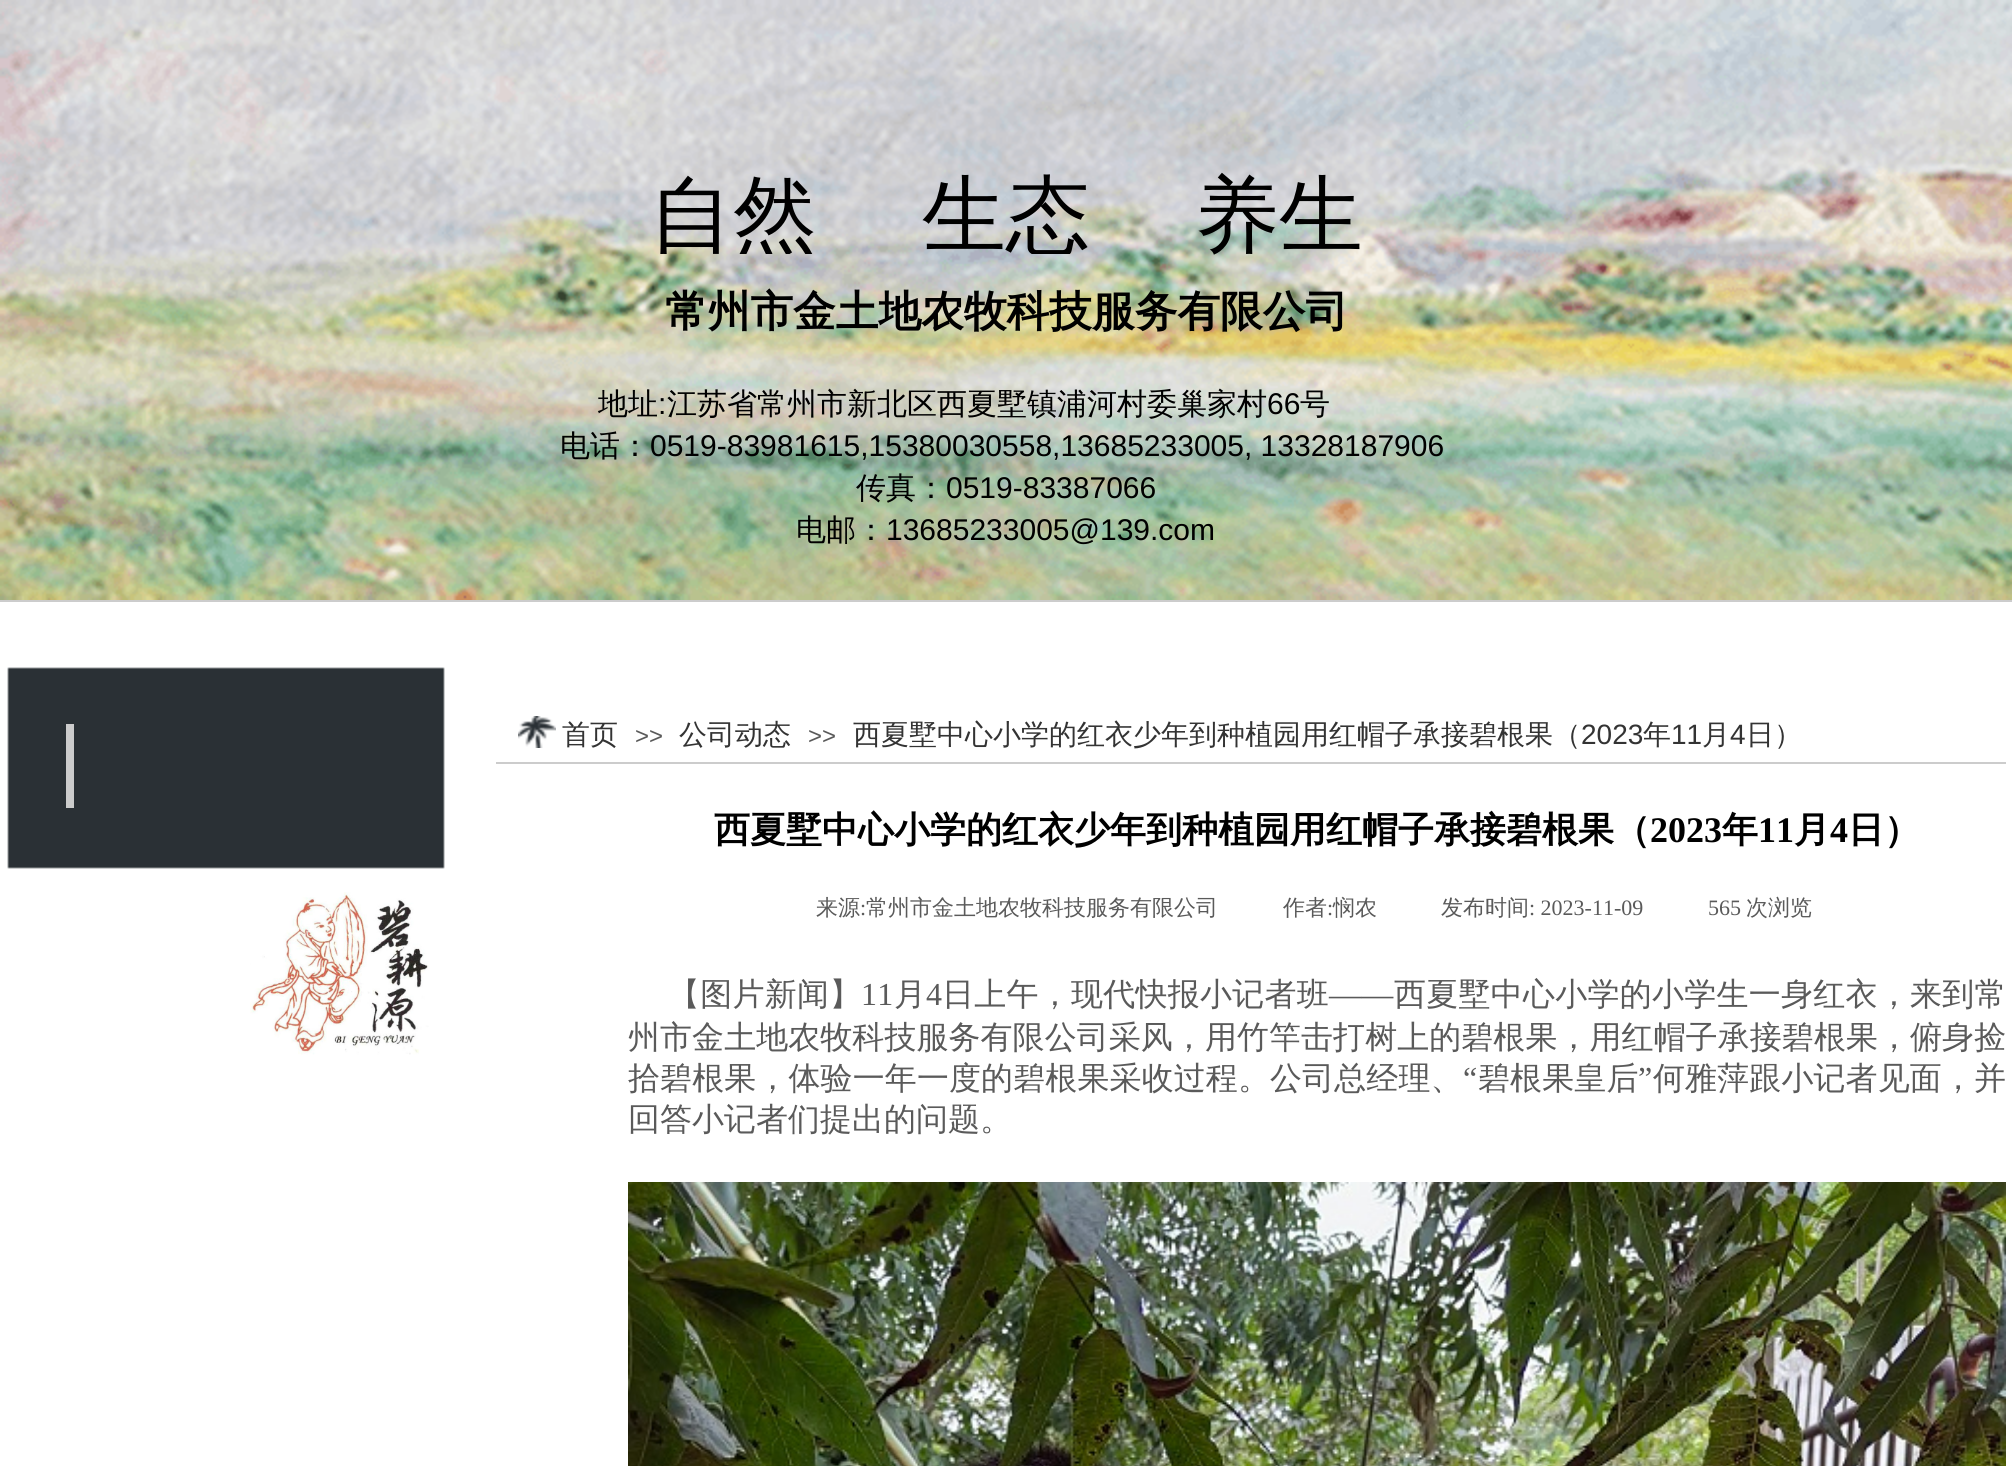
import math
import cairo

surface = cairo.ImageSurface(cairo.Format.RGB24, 2012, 1466)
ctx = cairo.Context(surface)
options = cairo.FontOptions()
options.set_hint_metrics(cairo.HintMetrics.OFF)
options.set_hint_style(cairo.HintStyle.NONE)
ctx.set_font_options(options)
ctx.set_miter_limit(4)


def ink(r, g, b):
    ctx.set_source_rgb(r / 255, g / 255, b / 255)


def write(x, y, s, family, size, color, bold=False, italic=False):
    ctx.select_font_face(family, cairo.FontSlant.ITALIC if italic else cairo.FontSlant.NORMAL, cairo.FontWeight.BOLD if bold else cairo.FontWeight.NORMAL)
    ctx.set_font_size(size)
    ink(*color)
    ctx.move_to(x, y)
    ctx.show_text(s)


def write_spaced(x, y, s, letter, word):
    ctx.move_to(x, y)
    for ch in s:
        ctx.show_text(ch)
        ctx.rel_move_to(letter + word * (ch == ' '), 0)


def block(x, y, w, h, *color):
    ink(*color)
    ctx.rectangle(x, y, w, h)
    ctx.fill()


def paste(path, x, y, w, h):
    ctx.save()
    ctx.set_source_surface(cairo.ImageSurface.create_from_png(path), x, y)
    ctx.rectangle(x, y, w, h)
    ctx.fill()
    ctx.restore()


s1 = dict(family="WenQuanYi Zen Hei Medium", size=84, color=(0, 0, 0))
s2 = dict(family="WenQuanYi Zen Hei", size=42.7, color=(0, 0, 0), bold=True)
s3 = dict(family="WenQuanYi Zen Hei Medium", size=30, color=(0, 0, 0))
s4 = dict(family="Liberation Sans", size=30, color=(0, 0, 0))
s5 = dict(family="WenQuanYi Zen Hei Medium", size=28, color=(51, 51, 51))
s6 = dict(family="Liberation Sans", size=24, color=(90, 90, 90))
s7 = dict(family="Liberation Sans", size=28, color=(51, 51, 51))
s8 = dict(family="WenQuanYi Zen Hei", size=36, color=(0, 0, 0), bold=True)
s9 = dict(family="Liberation Serif", size=36, color=(0, 0, 0), bold=True)
s10 = dict(family="WenQuanYi Zen Hei Medium", size=22, color=(90, 90, 90))
s11 = dict(family="Liberation Serif", size=22, color=(90, 90, 90))
s12 = dict(family="WenQuanYi Zen Hei Medium", size=32, color=(90, 90, 90))

ink(255, 255, 255)
ctx.paint()
block(0, 600, 2012, 2, 204, 204, 204)
paste("pic1.png", 0, 0, 2012, 600)
ctx.save()
ctx.rectangle(6, 158, 2000, 96)
ctx.clip()
write(649, 244, "自然", **s1)
write(922, 244, "生态", **s1)
ctx.restore()
write(1195, 244, "养生", **s1)
write(665, 326, "常州市金土地农牧科技服务有限公司", **s2)
write(598, 414, "地址", **s3)
write(658, 414, ":", **s4)
write(667, 414, "江苏省常州市新北区西夏墅镇浦河村委巢家村", **s3)
write(1267, 414, "66", **s4)
write(1300, 414, "号", **s3)
write(560, 456, "电话：", **s3)
write(650, 456, "0519-83981615,15380030558,13685233005, 13328187906", **s4)
write(856, 498, "传真：", **s3)
write(946, 498, "0519-83387066", **s4)
write(796, 540, "电邮：", **s3)
write(886, 540, "13685233005@139.com", **s4)
paste("pic2.png", 7, 667, 438, 202)
paste("pic3.png", 518, 716, 38, 32)
write(562, 744, "首页", **s5)
write(635, 744, ">>", **s6)
write(679, 744, "公司动态", **s5)
write(808, 744, ">>", **s6)
write(853, 744, "西夏墅中心小学的红衣少年到种植园用红帽子承接碧根果（", **s5)
write(1581, 744, "2023", **s7)
write(1643, 744, "年", **s5)
write(1671, 744, "11", **s7)
write(1702, 744, "月", **s5)
write(1730, 744, "4", **s7)
write(1746, 744, "日）", **s5)
block(66, 724, 8, 84, 204, 204, 204)
block(496, 762, 1510, 2, 204, 204, 204)
paste("pic4.png", 250, 892, 179, 163)
write(714, 842, "西夏墅中心小学的红衣少年到种植园用红帽子承接碧根果（", **s8)
write(1650, 842, "2023", **s9)
write(1722, 842, "年", **s8)
write(1758, 842, "11", **s9)
write(1794, 842, "月", **s8)
write(1830, 842, "4", **s9)
write(1848, 842, "日）", **s8)
write(816, 915, "来源", **s10)
write(860, 915, ":", **s11)
write(866, 915, "常州市金土地农牧科技服务有限公司", **s10)
write(1283, 915, "作者", **s10)
write(1327, 915, ":", **s11)
write(1333, 915, "悯农", **s10)
write(1441, 915, "发布时间", **s10)
write(1529, 915, ": 2023-11-09", **s11)
write(1708, 915, "565", **s11)
write(1746, 915, "次浏览", **s10)
ctx.set_font_size(32)
write_spaced(668, 1005, "【图片新闻】", 0.25, 0)
ctx.select_font_face("Liberation Serif")
write_spaced(861, 1005, "11", 0.25, 0)
ctx.select_font_face("WenQuanYi Zen Hei Medium")
write_spaced(894, 1005, "月", 0.25, 0)
ctx.select_font_face("Liberation Serif")
write_spaced(926, 1005, "4", 0.25, 0)
ctx.select_font_face("WenQuanYi Zen Hei Medium")
write_spaced(942, 1005, "日上午，现代快报小记者班", 0.25, 0)
ctx.select_font_face("Liberation Serif")
write_spaced(1329, 1005, "——", 0.25, 0)
ctx.select_font_face("WenQuanYi Zen Hei Medium")
write_spaced(1394, 1005, "西夏墅中心小学的小学生一身红衣，来到常", 0.25, 0)
write_spaced(628, 1048, "州市金土地农牧科技服务有限公司采风，用竹竿击打树上的碧根果，用红帽子承接碧根果，俯身捡", 0.05, 0)
write_spaced(628, 1089, "拾碧根果，体验一年一度的碧根果采收过程。公司总经理、", 0.1, 0)
ctx.select_font_face("Liberation Serif")
write_spaced(1463, 1089, "“", 0.1, 0)
ctx.select_font_face("WenQuanYi Zen Hei Medium")
write_spaced(1478, 1089, "碧根果皇后", 0.1, 0)
ctx.select_font_face("Liberation Serif")
write_spaced(1638, 1089, "”", 0.1, 0)
ctx.select_font_face("WenQuanYi Zen Hei Medium")
write_spaced(1653, 1089, "何雅萍跟小记者见面，并", 0.1, 0)
write(628, 1130, "回答小记者们提出的问题。", **s12)
paste("pic5.png", 628, 1182, 1378, 284)
surface.write_to_png("screenshot.png")
